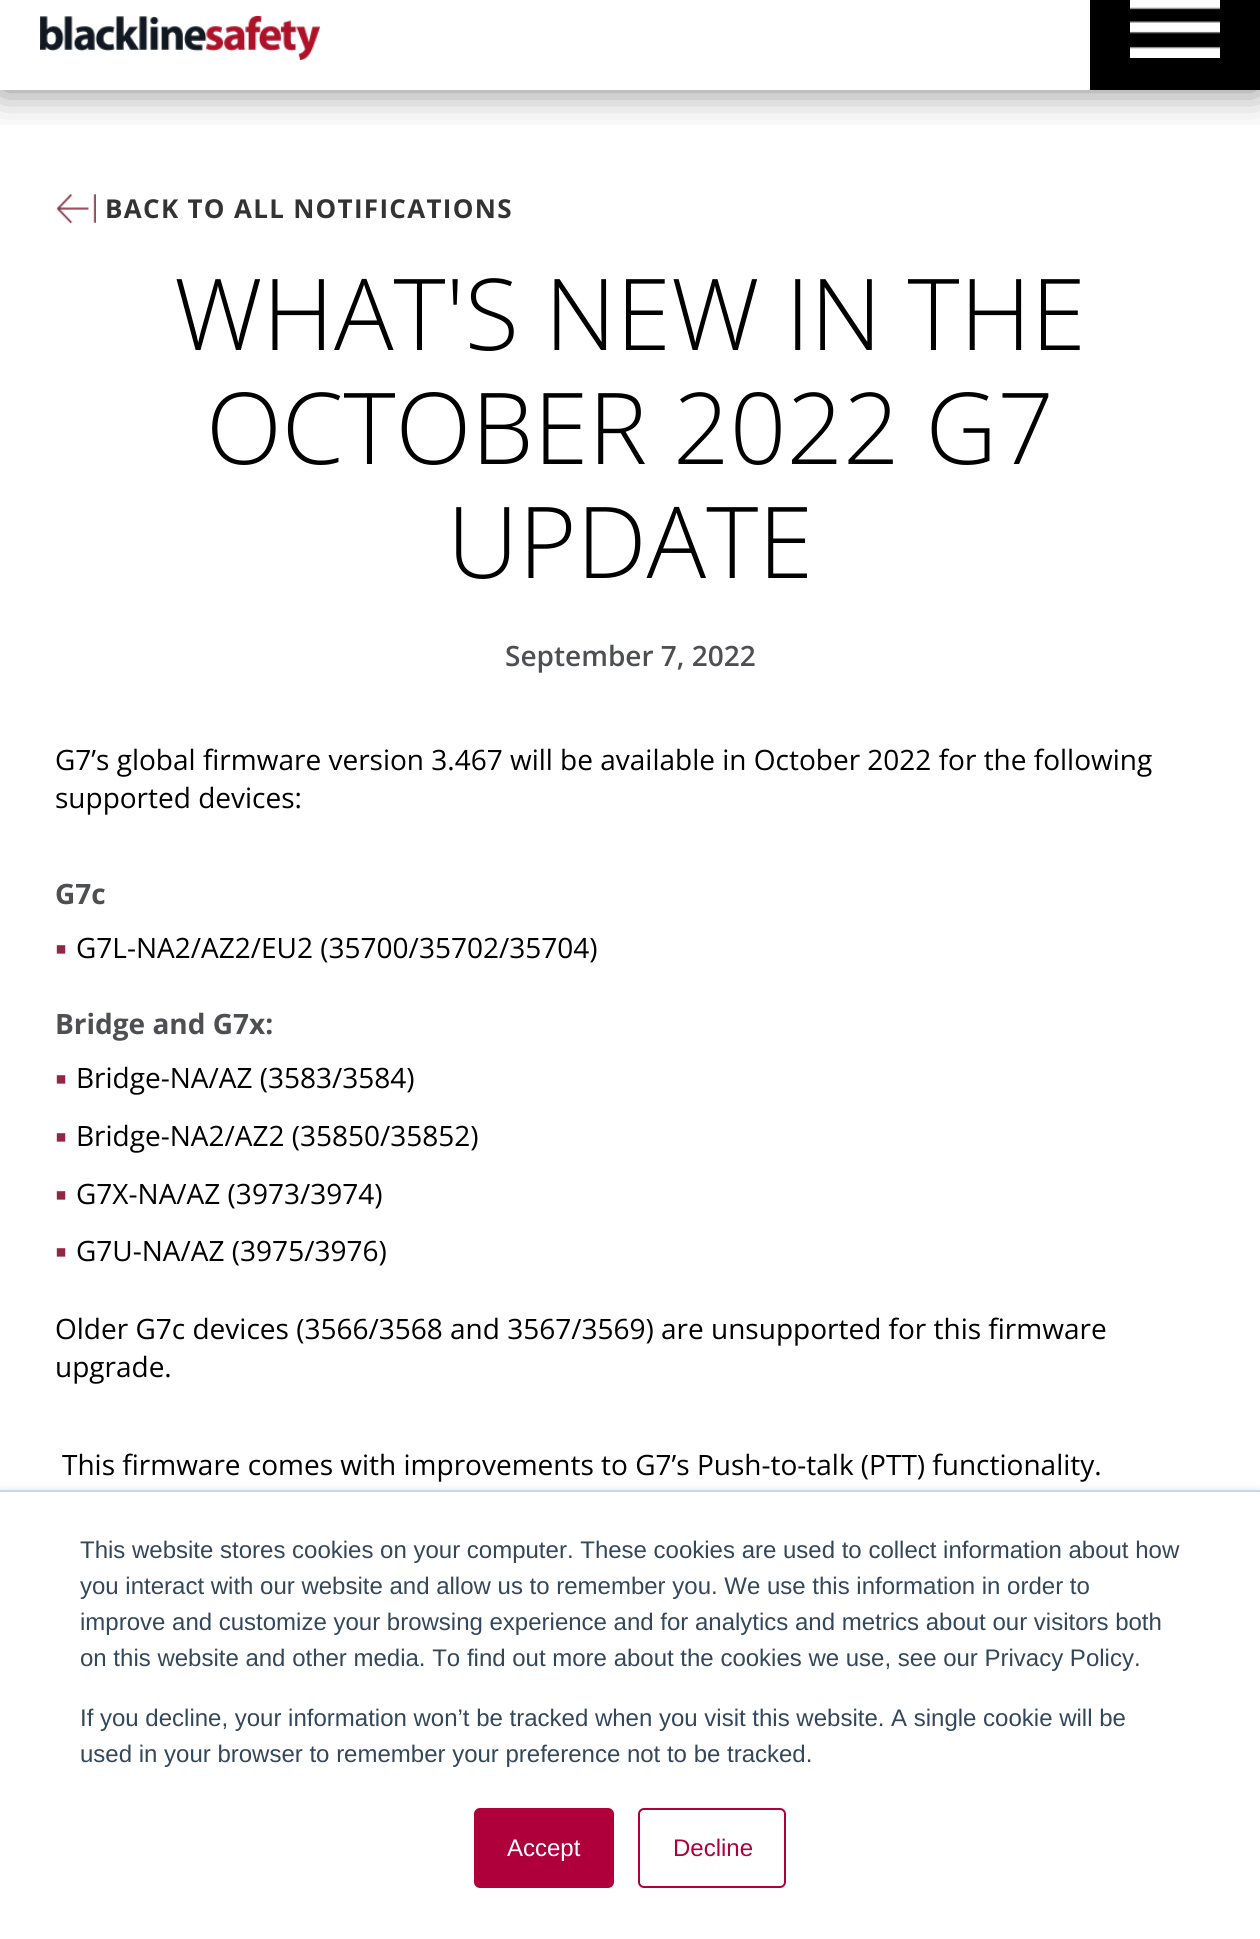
import math
import cairo

surface = cairo.ImageSurface(cairo.Format.RGB24, 1260, 1939)
ctx = cairo.Context(surface)
options = cairo.FontOptions()
options.set_hint_metrics(cairo.HintMetrics.OFF)
options.set_hint_style(cairo.HintStyle.NONE)
ctx.set_font_options(options)
ctx.set_miter_limit(4)


def ink(r, g, b):
    ctx.set_source_rgb(r / 255, g / 255, b / 255)


def write(x, y, s, family, size, color, bold=False, italic=False):
    ctx.select_font_face(family, cairo.FontSlant.ITALIC if italic else cairo.FontSlant.NORMAL, cairo.FontWeight.BOLD if bold else cairo.FontWeight.NORMAL)
    ctx.set_font_size(size)
    ink(*color)
    ctx.move_to(x, y)
    ctx.show_text(s)


def write_spaced(x, y, s, letter, word):
    ctx.move_to(x, y)
    for ch in s:
        ctx.show_text(ch)
        ctx.rel_move_to(letter + word * (ch == ' '), 0)


def block(x, y, w, h, *color):
    ink(*color)
    ctx.rectangle(x, y, w, h)
    ctx.fill()


def round_path(x, y, w, h, r):
    ctx.new_sub_path()
    for i, (u, v) in enumerate([(x + w - r, y + h - r), (x + r, y + h - r), (x + r, y + r), (x + w - r, y + r)]):
        ctx.arc(u, v, r, i * math.pi / 2, (i + 1) * math.pi / 2)
    ctx.close_path()


def blur_box(x, y, w, h, r, blur, alpha):
    ctx.push_group_with_content(cairo.Content.ALPHA)
    ctx.set_operator(cairo.Operator.SOURCE)
    for i in range(15, -16, -2):
        e = blur * i / 6
        if min(w, h) + 2 * e > 0:
            ctx.set_source_rgba(0, 0, 0, alpha * math.erfc((i - 1) / 8.5) / 2)
            round_path(x - e, y - e, w + 2 * e, h + 2 * e, max(0, min(r + e + blur * .6, min(w, h) / 2 + e)))
            ctx.fill()
    ctx.mask(ctx.pop_group())


def paste(path, x, y, w, h):
    ctx.save()
    ctx.set_source_surface(cairo.ImageSurface.create_from_png(path), x, y)
    ctx.rectangle(x, y, w, h)
    ctx.fill()
    ctx.restore()


s1 = dict(family="Open Sans Light", size=99.25, color=(0, 0, 0))
s2 = dict(family="Open Sans SemiBold", size=28, color=(77, 79, 83))
s3 = dict(family="Open Sans", size=28, color=(0, 0, 0))
s4 = dict(family="Open Sans", size=28, color=(77, 79, 83), bold=True)
s5 = dict(family="Liberation Serif", size=34, color=(146, 39, 67))
s6 = dict(family="Liberation Sans", size=24, color=(51, 71, 91))
s7 = dict(family="Liberation Sans", size=24, color=(255, 255, 255))
s8 = dict(family="Liberation Sans", size=24, color=(175, 0, 59))

ink(255, 255, 255)
ctx.paint()
ctx.save()
ctx.rectangle(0, 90, 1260, 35)
ctx.clip()
ink(0, 0, 0)
blur_box(0, -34, 1260, 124, 0, 20, 0.5)
ctx.restore()
paste("pic1.png", 40, 16, 280, 44)
block(1090, 0, 170, 90, 0, 0, 0)
paste("pic2.png", 1130, 0, 90, 58)
paste("pic3.png", 56, 194, 40, 30)
ctx.select_font_face("Open Sans", cairo.FontSlant.NORMAL, cairo.FontWeight.BOLD)
ctx.set_font_size(26)
ink(51, 51, 51)
write_spaced(105, 218, "BACK TO ALL NOTIFICATIONS", 1.3, 0)
write(174, 350, "WHAT'S NEW IN THE", **s1)
write(206, 464, "OCTOBER 2022 G7", **s1)
write(447, 578, "UPDATE", **s1)
write(505, 666, "September 7, 2022", **s2)
write(55, 770, "G7’s global firmware version 3.467 will be available in October 2022 for the following", **s3)
write(55, 808, "supported devices:", **s3)
write(55, 904, "G7c", **s4)
write(55, 960, "▪", **s5)
write(76, 958, "G7L-NA2/AZ2/EU2 (35700/35702/35704)", **s3)
write(55, 1034, "Bridge and G7x:", **s4)
write(55, 1090, "▪", **s5)
write(76, 1088, "Bridge-NA/AZ (3583/3584)", **s3)
write(55, 1148, "▪", **s5)
write(76, 1146, "Bridge-NA2/AZ2 (35850/35852)", **s3)
write(55, 1206, "▪", **s5)
write(76, 1204, "G7X-NA/AZ (3973/3974)", **s3)
write(55, 1263, "▪", **s5)
write(76, 1261, "G7U-NA/AZ (3975/3976)", **s3)
write(55, 1339, "Older G7c devices (3566/3568 and 3567/3569) are unsupported for this firmware", **s3)
write(55, 1377, "upgrade.", **s3)
write(62, 1475, "This firmware comes with improvements to G7’s Push-to-talk (PTT) functionality.", **s3)
ink(234, 240, 246)
blur_box(0, 1488, 1260, 450, 0, 3, 1)
block(0, 1492, 1260, 447, 255, 255, 255)
block(0, 1490, 1260, 2, 203, 214, 226)
write(80, 1558, "This website stores cookies on your computer. These cookies are used to collect information about how", **s6)
write(80, 1594, "you interact with our website and allow us to remember you. We use this information in order to", **s6)
write(80, 1630, "improve and customize your browsing experience and for analytics and metrics about our visitors both", **s6)
write(80, 1666, "on this website and other media. To find out more about the cookies we use, see our Privacy Policy.", **s6)
write(80, 1726, "If you decline, your information won’t be tracked when you visit this website. A single cookie will be", **s6)
write(80, 1762, "used in your browser to remember your preference not to be tracked.", **s6)
ink(175, 0, 59)
round_path(475, 1809, 138, 78, 5)
ctx.fill_preserve()
ctx.stroke()
write(507, 1856, "Accept", **s7)
round_path(639, 1809, 146, 78, 5)
ink(175, 0, 59)
ctx.stroke()
write(673, 1856, "Decline", **s8)
surface.write_to_png("screenshot.png")
